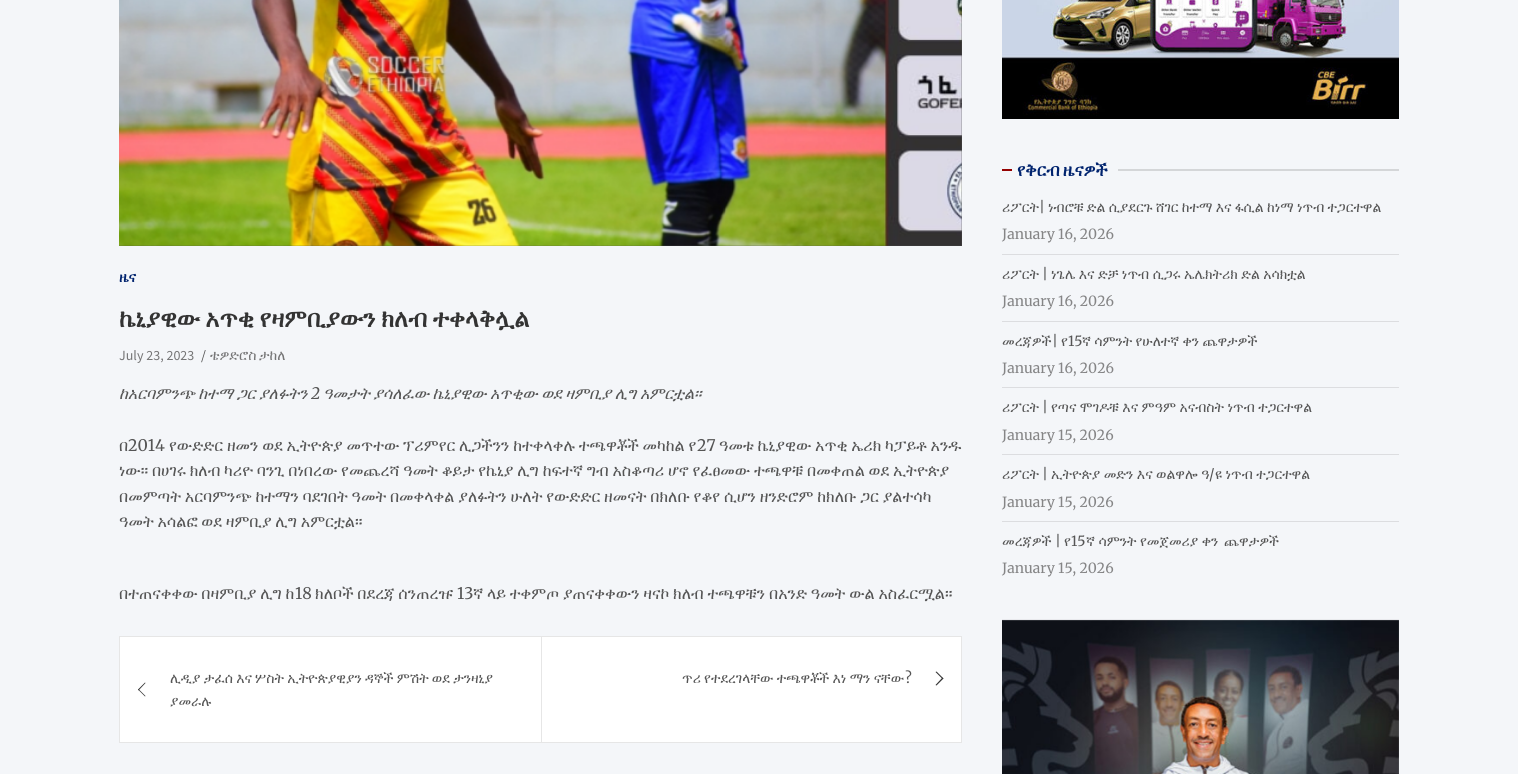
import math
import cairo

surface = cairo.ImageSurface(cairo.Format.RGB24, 1518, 774)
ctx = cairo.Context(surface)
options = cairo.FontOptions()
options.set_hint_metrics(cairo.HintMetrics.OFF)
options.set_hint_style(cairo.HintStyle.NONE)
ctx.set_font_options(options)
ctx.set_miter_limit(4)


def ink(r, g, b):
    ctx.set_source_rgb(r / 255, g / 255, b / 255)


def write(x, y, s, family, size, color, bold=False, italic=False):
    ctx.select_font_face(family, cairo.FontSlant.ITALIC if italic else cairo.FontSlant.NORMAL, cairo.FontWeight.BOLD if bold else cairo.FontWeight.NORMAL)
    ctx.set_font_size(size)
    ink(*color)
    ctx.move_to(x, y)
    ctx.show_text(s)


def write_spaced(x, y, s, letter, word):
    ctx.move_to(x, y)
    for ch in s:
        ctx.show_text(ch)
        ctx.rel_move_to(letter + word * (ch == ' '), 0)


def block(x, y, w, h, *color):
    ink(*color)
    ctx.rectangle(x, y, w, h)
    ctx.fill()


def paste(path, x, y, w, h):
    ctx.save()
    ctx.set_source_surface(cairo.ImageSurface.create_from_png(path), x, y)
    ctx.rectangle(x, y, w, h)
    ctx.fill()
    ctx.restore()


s1 = dict(family="FreeSerif", size=14, color=(0, 35, 110), bold=True)
s2 = dict(family="Source Sans Pro", size=14, color=(117, 117, 118))
s3 = dict(family="Source Sans Pro", size=14, color=(85, 85, 85))
s4 = dict(family="Merriweather", size=16, color=(85, 85, 85), italic=True)
s5 = dict(family="FreeSerif", size=16, color=(85, 85, 85))
s6 = dict(family="Merriweather", size=16, color=(85, 85, 85))
s7 = dict(family="FreeSerif", size=14, color=(85, 85, 85))
s8 = dict(family="Merriweather", size=14, color=(85, 85, 85))
s9 = dict(family="Merriweather", size=14, color=(133, 133, 134))

ink(244, 246, 249)
ctx.paint()
block(119, 0, 843, 246, 85, 85, 85)
paste("pic1.png", 119, 0, 843, 246)
write(119, 282, "ዜና", **s1)
ctx.set_font_size(24)
ink(51, 51, 51)
write_spaced(119, 327, "ኬኒያዊው አጥቂ የዛምቢያውን ክለብ ተቀላቅሏል", 0, -0.5)
write(119, 360, "July 23, 2023", **s2)
write(201, 360, "/", **s3)
ctx.select_font_face("FreeSerif")
ink(117, 117, 118)
write_spaced(210, 360, "ቴዎድሮስ ታከለ", 0, -1)
ctx.select_font_face("FreeSerif", cairo.FontSlant.ITALIC)
ctx.set_font_size(16)
ink(85, 85, 85)
write_spaced(119, 399, "ከአርባምንጭ ከተማ ጋር ያለፉትን", 0, -0.5)
write(311, 399, "2", **s4)
ctx.select_font_face("FreeSerif", cairo.FontSlant.ITALIC)
write_spaced(323, 399, "ዓመታት ያሳለፈው ኬኒያዊው አጥቂው ወደ ዛምቢያ ሊግ አምርቷል።", 0, -0.5)
write(119, 451, "በ", **s5)
write(128, 451, "2014", **s6)
ctx.select_font_face("FreeSerif")
write_spaced(169, 451, "የውድድር ዘመን ወደ ኢትዮጵያ መጥተው ፕሪምየር ሊጋችንን ከተቀላቀሉ ተጫዋቾች መካከል የ", 0, -0.25)
write(697, 451, "27", **s6)
ctx.select_font_face("FreeSerif")
write_spaced(719, 451, "ዓመቱ ኬኒያዊው አጥቂ ኤሪክ ካፓይቶ አንዱ", 0, -0.25)
write_spaced(119, 476, "ነው። በሀገሩ ክለብ ካሪዮ ባንጊ በነበረው የመጨረሻ ዓመት ቆይታ የኬኒያ ሊግ ከፍተኛ ግብ አስቆጣሪ ሆኖ የፈፀመው ተጫዋቹ በመቀጠል ወደ ኢትዮጵያ", 0, -0.25)
write_spaced(119, 502, "በመምጣት አርባምንጭ ከተማን ባደገበት ዓመት በመቀላቀል ያለፉትን ሁለት የውድድር ዘመናት በክለቡ የቆየ ሲሆን ዘንድሮም ከክለቡ ጋር ያልተሳካ", 0, -0.25)
write_spaced(119, 527, "ዓመት አሳልፎ ወደ ዛምቢያ ሊግ አምርቷል።", 0, -0.25)
write_spaced(119, 599, "በተጠናቀቀው በዛምቢያ ሊግ ከ", 0, -0.25)
write(295, 599, "18", **s6)
ctx.select_font_face("FreeSerif")
write_spaced(315, 599, "ክለቦች በደረጃ ሰንጠረዡ", 0, -0.25)
write(457, 599, "13", **s6)
ctx.select_font_face("FreeSerif")
write_spaced(473, 599, "ኛ ላይ ተቀምጦ ያጠናቀቀውን ዛናኮ ክለብ ተጫዋቹን በአንድ ዓመት ውል አስፈርሟል።", 0, -0.25)
ink(255, 255, 255)
ctx.rectangle(119.5, 636.5, 842, 106)
ctx.fill_preserve()
ink(230, 230, 230)
ctx.set_line_width(1)
ctx.stroke()
ctx.set_font_size(14)
ink(85, 85, 85)
write_spaced(170, 683, "ሊዲያ ታፈሰ እና ሦስት ኢትዮጵያዊያን ዳኞች ምሽት ወደ ታንዛኒያ", 0, -0.25)
ink(51, 51, 51)
ctx.new_path()
ctx.move_to(138.5, 689)
ctx.line_to(145.5, 696)
ctx.line_to(145, 696.5)
ctx.line_to(138, 689.5)
ctx.close_path()
ctx.fill()
ctx.new_path()
ctx.move_to(145, 682.5)
ctx.line_to(145.5, 683)
ctx.line_to(138.5, 690.5)
ctx.line_to(138, 689.5)
ctx.close_path()
ctx.fill()
write(170, 706, "ያመራሉ", **s7)
block(541, 637, 1, 105, 230, 230, 230)
ink(85, 85, 85)
write_spaced(682, 683, "ጥሪ የተደረገላቸው ተጫዋቾች እነ ማን ናቸው", 0, -0.25)
write(905, 683, "?", **s8)
ink(51, 51, 51)
ctx.new_path()
ctx.move_to(936.5, 671.5)
ctx.line_to(943.5, 678.5)
ctx.line_to(942.5, 679)
ctx.line_to(935.5, 672)
ctx.close_path()
ctx.fill()
ctx.new_path()
ctx.move_to(942.5, 677.5)
ctx.line_to(943.5, 678.5)
ctx.line_to(936.5, 685.5)
ctx.line_to(935.5, 685)
ctx.close_path()
ctx.fill()
paste("pic2.png", 1002, 0, 397, 119)
block(1002, 169, 10, 2, 149, 2, 2)
ctx.select_font_face("FreeSerif", cairo.FontSlant.NORMAL, cairo.FontWeight.BOLD)
ctx.set_font_size(17)
ink(0, 35, 110)
write_spaced(1017, 176, "የቅርብ ዜናዎች", 0, -1)
block(1118, 169, 281, 2, 212, 214, 216)
block(1002, 254, 397, 1, 220, 221, 224)
write(1002, 212, "ሪፖርት", **s7)
write(1039, 212, "|", **s8)
ctx.select_font_face("FreeSerif")
write_spaced(1048, 212, "ነብሮቹ ድል ሲያደርጉ ሸገር ከተማ እና ፋሲል ከነማ ነጥብ ተጋርተዋል", 0, -0.25)
write(1002, 239, "January 16, 2026", **s9)
block(1002, 321, 397, 1, 220, 221, 224)
write(1002, 279, "ሪፖርት", **s7)
write(1042, 279, "|", **s8)
write(1051, 279, "ነጌሌ እና ድቻ ነጥብ ሲጋሩ ኤሌክትሪክ ድል አሳክቷል", **s7)
write(1002, 306, "January 16, 2026", **s9)
block(1002, 387, 397, 1, 220, 221, 224)
write(1002, 346, "መረጃዎች", **s7)
write(1052, 346, "|", **s8)
write(1061, 346, "የ", **s7)
write(1068, 346, "15", **s8)
ctx.select_font_face("FreeSerif")
write_spaced(1082, 346, "ኛ ሳምንት የሁለተኛ ቀን ጨዋታዎች", 0, -0.25)
write(1002, 373, "January 16, 2026", **s9)
block(1002, 454, 397, 1, 220, 221, 224)
write(1002, 412, "ሪፖርት", **s7)
write(1042, 412, "|", **s8)
write(1051, 412, "የጣና ሞገዶቹ እና ምዓም አናብስት ነጥብ ተጋርተዋል", **s7)
write(1002, 440, "January 15, 2026", **s9)
block(1002, 521, 397, 1, 220, 221, 224)
write(1002, 479, "ሪፖርት", **s7)
write(1042, 479, "|", **s8)
write(1051, 479, "ኢትዮጵያ መድን እና ወልዋሎ ዓ", **s7)
write(1209, 479, "/", **s8)
write(1215, 479, "ዩ ነጥብ ተጋርተዋል", **s7)
write(1002, 507, "January 15, 2026", **s9)
write(1002, 546, "መረጃዎች", **s7)
write(1055, 546, "|", **s8)
write(1064, 546, "የ", **s7)
write(1071, 546, "15", **s8)
write(1086, 546, "ኛ ሳምንት የመጀመሪያ ቀን", **s7)
write(1224, 546, "ጨዋታዎች", **s7)
write(1002, 573, "January 15, 2026", **s9)
paste("pic3.png", 1002, 619, 397, 155)
surface.write_to_png("screenshot.png")
